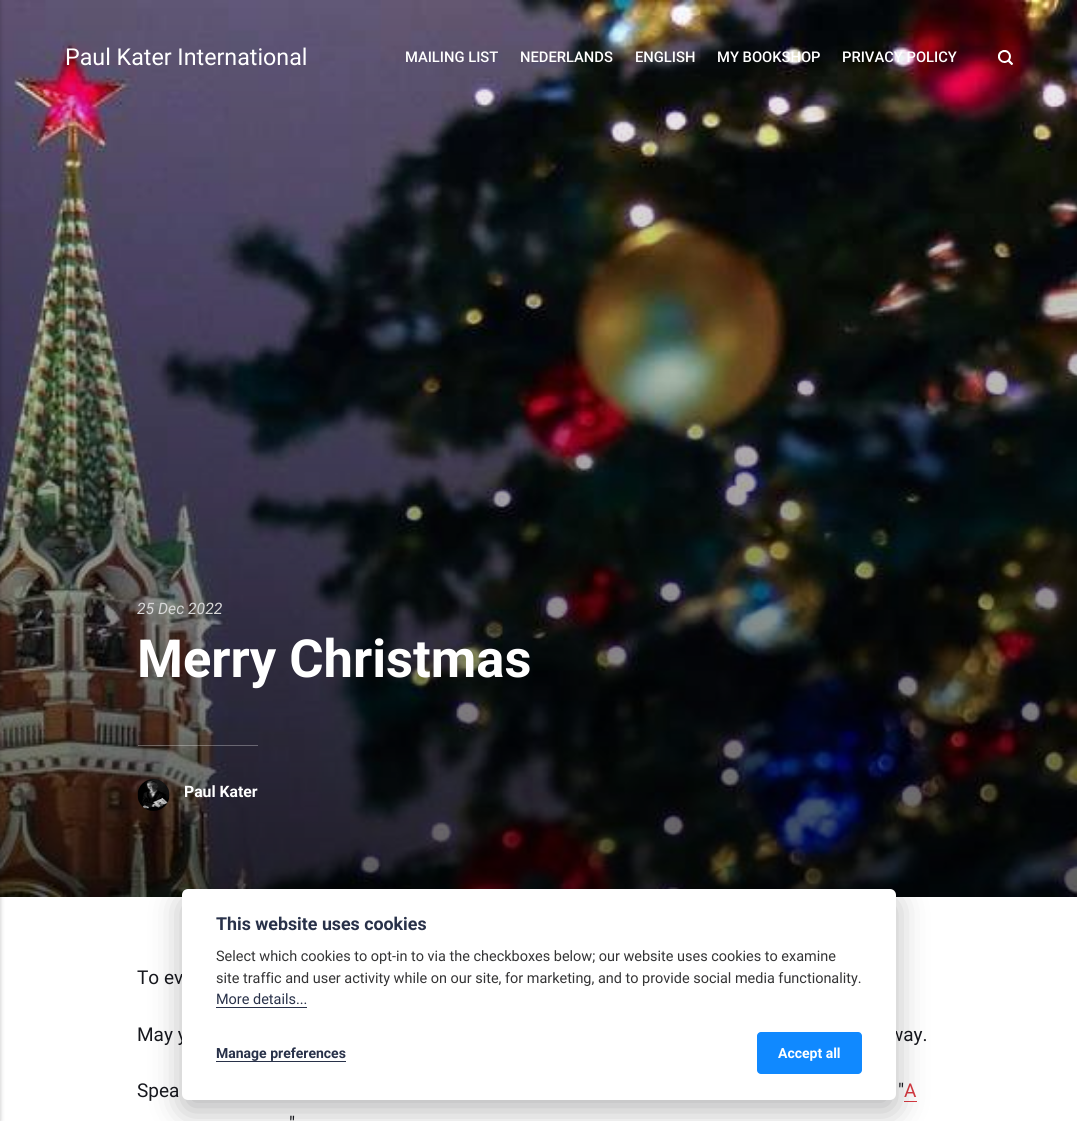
import math
import cairo

surface = cairo.ImageSurface(cairo.Format.RGB24, 1077, 1121)
ctx = cairo.Context(surface)
options = cairo.FontOptions()
options.set_hint_metrics(cairo.HintMetrics.OFF)
options.set_hint_style(cairo.HintStyle.NONE)
ctx.set_font_options(options)
ctx.set_miter_limit(4)


def ink(r, g, b):
    ctx.set_source_rgb(r / 255, g / 255, b / 255)


def write(x, y, s, family, size, color, bold=False, italic=False):
    ctx.select_font_face(family, cairo.FontSlant.ITALIC if italic else cairo.FontSlant.NORMAL, cairo.FontWeight.BOLD if bold else cairo.FontWeight.NORMAL)
    ctx.set_font_size(size)
    ink(*color)
    ctx.move_to(x, y)
    ctx.show_text(s)


def block(x, y, w, h, *color):
    ink(*color)
    ctx.rectangle(x, y, w, h)
    ctx.fill()


def round_path(x, y, w, h, r):
    ctx.new_sub_path()
    for i, (u, v) in enumerate([(x + w - r, y + h - r), (x + r, y + h - r), (x + r, y + r), (x + w - r, y + r)]):
        ctx.arc(u, v, r, i * math.pi / 2, (i + 1) * math.pi / 2)
    ctx.close_path()


def blur_box(x, y, w, h, r, blur, alpha):
    ctx.push_group_with_content(cairo.Content.ALPHA)
    ctx.set_operator(cairo.Operator.SOURCE)
    for i in range(15, -16, -2):
        e = blur * i / 6
        if min(w, h) + 2 * e > 0:
            ctx.set_source_rgba(0, 0, 0, alpha * math.erfc((i - 1) / 8.5) / 2)
            round_path(x - e, y - e, w + 2 * e, h + 2 * e, max(0, min(r + e + blur * .6, min(w, h) / 2 + e)))
            ctx.fill()
    ctx.mask(ctx.pop_group())


def paste(path, x, y, w, h):
    ctx.save()
    ctx.set_source_surface(cairo.ImageSurface.create_from_png(path), x, y)
    ctx.rectangle(x, y, w, h)
    ctx.fill()
    ctx.restore()


s1 = dict(family="Roboto", size=23.25, color=(255, 255, 255))
s2 = dict(family="Roboto Medium", size=14.75, color=(255, 255, 255))
s3 = dict(family="Roboto", size=15.75, color=(215, 215, 215), italic=True)
s4 = dict(family="Roboto", size=52.5, color=(255, 255, 255), bold=True)
s5 = dict(family="Roboto", size=15.75, color=(255, 255, 255), bold=True)
s6 = dict(family="Roboto", size=19, color=(23, 24, 30))
s7 = dict(family="Roboto", size=19, color=(215, 58, 66))
s8 = dict(family="Roboto", size=17.8, color=(40, 49, 73), bold=True)
s9 = dict(family="Roboto", size=14.45, color=(52, 52, 53))
s10 = dict(family="Roboto", size=14.45, color=(40, 49, 73))
s11 = dict(family="Roboto", size=14, color=(40, 49, 73), bold=True)
s12 = dict(family="Roboto", size=14, color=(255, 255, 255), bold=True)

ink(255, 255, 255)
ctx.paint()
paste("pic2.png", 0, 0, 1077, 897)
ink(0, 0, 0)
blur_box(-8, 0, 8, 1121, 0, 2.5, 0.25)
write(65, 65, "Paul Kater International", **s1)
write(405, 62, "MAILING LIST", **s2)
write(520, 62, "NEDERLANDS", **s2)
write(635, 62, "ENGLISH", **s2)
write(717, 62, "MY BOOKSHOP", **s2)
write(842, 62, "PRIVACY POLICY", **s2)
paste("pic1.png", 998, 50, 15, 15)
write(137, 614, "25 Dec 2022", **s3)
write(137, 677, "Merry Christmas", **s4)
ctx.set_source_rgba(1, 1, 1, 0.3)
ctx.rectangle(138, 745, 120, 1)
ctx.fill()
paste("pic3.png", 137, 779, 33, 32)
write(184, 797, "Paul Kater", **s5)
write(137, 984, "To ev", **s6)
write(137, 1041, "May y", **s6)
write(889, 1041, "way.", **s6)
write(137, 1097, "Spea", **s6)
write(898, 1097, "\"", **s6)
write(904, 1097, "A", **s7)
block(904, 1101, 13, 1, 215, 58, 66)
write(289, 1130, "\"", **s6)
ink(2, 2, 3)
blur_box(182, 900, 714, 211, 6, 16, 0.28)
ink(255, 255, 255)
round_path(182, 889, 714, 211, 6)
ctx.fill()
write(216, 930, "This website uses cookies", **s8)
write(216, 961, "Select which cookies to opt-in to via the checkboxes below; our website uses cookies to examine", **s9)
write(216, 983, "site traffic and user activity while on our site, for marketing, and to provide social media functionality.", **s9)
write(216, 1004, "More details...", **s10)
block(216, 1007, 91, 1, 40, 49, 73)
write(216, 1058, "Manage preferences", **s11)
block(216, 1061, 130, 1, 40, 49, 73)
ink(16, 137, 255)
round_path(757, 1032, 105, 42, 4)
ctx.fill()
write(778, 1058, "Accept all", **s12)
surface.write_to_png("screenshot.png")
